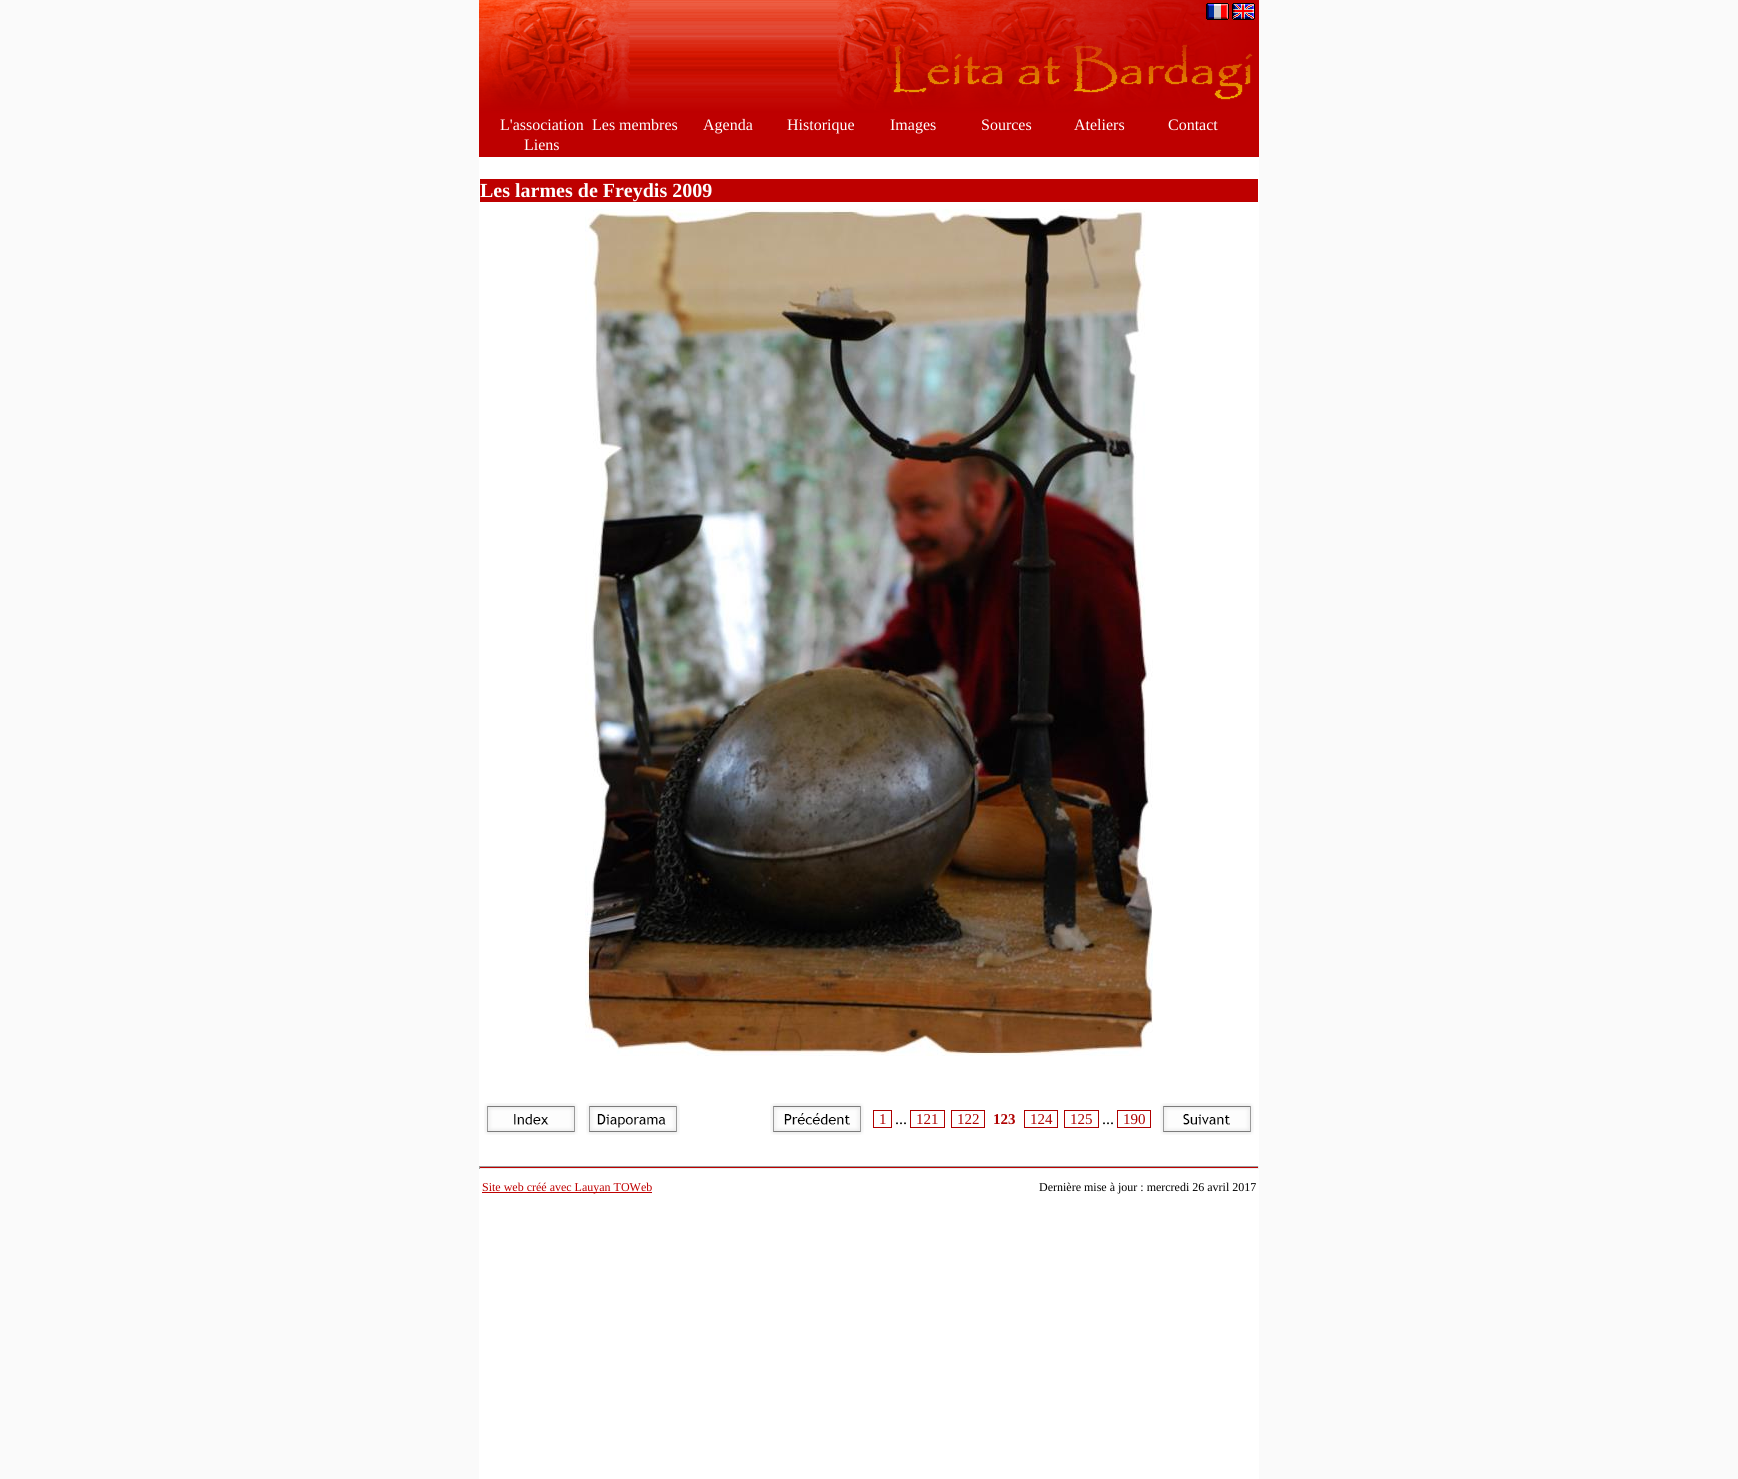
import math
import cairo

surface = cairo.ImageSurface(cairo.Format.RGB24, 1738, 1479)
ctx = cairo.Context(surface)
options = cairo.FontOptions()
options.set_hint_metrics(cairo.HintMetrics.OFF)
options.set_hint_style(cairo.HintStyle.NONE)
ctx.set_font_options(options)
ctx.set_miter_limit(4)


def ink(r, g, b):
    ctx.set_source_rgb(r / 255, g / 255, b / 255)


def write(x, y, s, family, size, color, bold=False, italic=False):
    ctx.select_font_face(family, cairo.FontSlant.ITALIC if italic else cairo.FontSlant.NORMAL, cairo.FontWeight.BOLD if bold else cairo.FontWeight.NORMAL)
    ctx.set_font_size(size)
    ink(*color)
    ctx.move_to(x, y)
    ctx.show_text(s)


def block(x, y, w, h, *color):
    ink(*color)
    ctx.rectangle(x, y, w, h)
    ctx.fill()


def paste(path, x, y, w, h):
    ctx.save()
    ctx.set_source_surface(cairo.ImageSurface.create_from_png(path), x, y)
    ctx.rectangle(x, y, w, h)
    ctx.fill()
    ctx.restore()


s1 = dict(family="Liberation Serif", size=16, color=(255, 255, 255))
s2 = dict(family="Liberation Serif", size=20, color=(255, 255, 255), bold=True)
s3 = dict(family="Liberation Serif", size=15, color=(175, 0, 0))
s4 = dict(family="Liberation Serif", size=16, color=(0, 0, 0))
s5 = dict(family="Liberation Serif", size=15, color=(175, 0, 0), bold=True)
s6 = dict(family="Liberation Serif", size=12, color=(190, 0, 0))
s7 = dict(family="Liberation Serif", size=12, color=(0, 0, 0))

ink(250, 250, 250)
ctx.paint()
block(479, 157, 780, 1322, 255, 255, 255)
paste("pic1.png", 479, 0, 151, 114)
paste("pic2.png", 630, 0, 207, 114)
paste("pic3.png", 837, 0, 422, 114)
paste("pic4.png", 1206, 3, 23, 17)
paste("pic5.png", 1232, 3, 23, 17)
block(479, 114, 780, 43, 190, 0, 0)
write(500, 130, "L'association", **s1)
write(592, 130, "Les membres", **s1)
write(703, 130, "Agenda", **s1)
write(787, 130, "Historique", **s1)
write(890, 130, "Images", **s1)
write(981, 130, "Sources", **s1)
write(1074, 130, "Ateliers", **s1)
write(1168, 130, "Contact", **s1)
write(524, 150, "Liens", **s1)
block(480, 179, 778, 23, 190, 0, 0)
write(480, 197, "Les larmes de Freydis 2009", **s2)
paste("pic6.png", 585, 209, 568, 847)
paste("pic7.png", 484, 1103, 94, 32)
paste("pic8.png", 586, 1103, 94, 32)
paste("pic9.png", 770, 1103, 94, 32)
ctx.rectangle(873.5, 1110.5, 18, 17)
ink(175, 0, 0)
ctx.set_line_width(1)
ctx.stroke()
write(879, 1124, "1", **s3)
write(895, 1124, "...", **s4)
ctx.rectangle(910.5, 1110.5, 34, 17)
ink(175, 0, 0)
ctx.stroke()
write(916, 1124, "121", **s3)
ctx.rectangle(951.5, 1110.5, 33, 17)
ctx.stroke()
write(957, 1124, "122", **s3)
write(993, 1124, "123", **s5)
ctx.rectangle(1024.5, 1110.5, 33, 17)
ctx.stroke()
write(1030, 1124, "124", **s3)
ctx.rectangle(1064.5, 1110.5, 34, 17)
ctx.stroke()
write(1070, 1124, "125", **s3)
write(1102, 1124, "...", **s4)
ctx.rectangle(1117.5, 1110.5, 33, 17)
ink(175, 0, 0)
ctx.stroke()
write(1123, 1124, "190", **s3)
paste("pic10.png", 1160, 1103, 94, 32)
block(479, 1167, 780, 1, 190, 0, 0)
block(479, 1166, 780, 1, 159, 159, 159)
block(1258, 1166, 1, 3, 238, 238, 238)
block(479, 1168, 780, 1, 238, 238, 238)
block(479, 1166, 1, 3, 159, 159, 159)
block(482, 1192, 170, 1, 190, 0, 0)
write(482, 1191, "Site web créé avec Lauyan TOWeb", **s6)
write(1039, 1191, "Dernière mise à jour : mercredi 26 avril 2017", **s7)
surface.write_to_png("screenshot.png")
